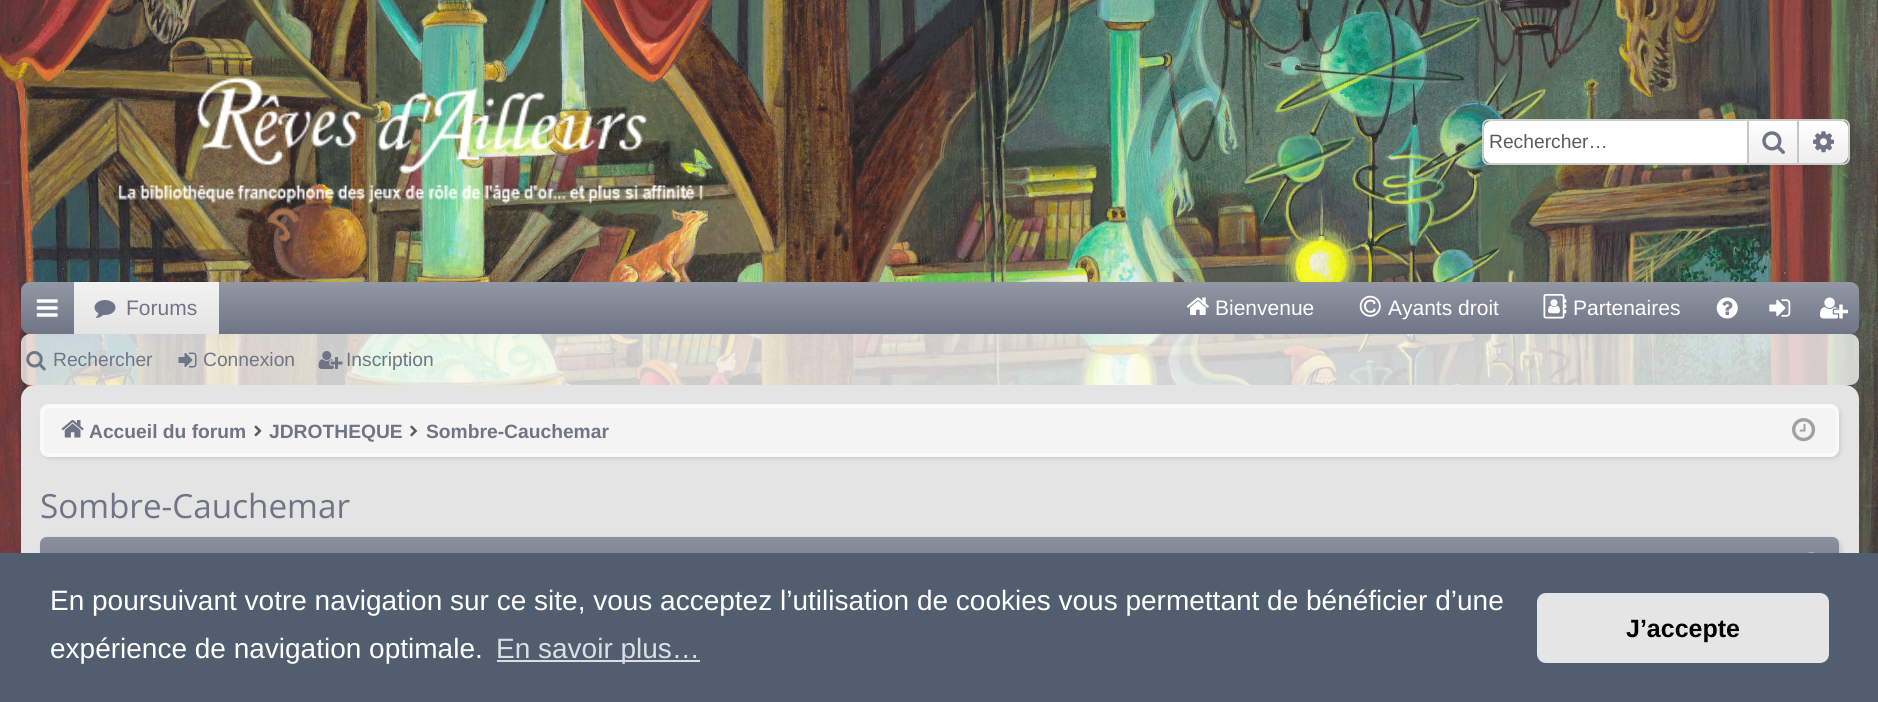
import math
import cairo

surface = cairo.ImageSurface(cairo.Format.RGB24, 1878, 702)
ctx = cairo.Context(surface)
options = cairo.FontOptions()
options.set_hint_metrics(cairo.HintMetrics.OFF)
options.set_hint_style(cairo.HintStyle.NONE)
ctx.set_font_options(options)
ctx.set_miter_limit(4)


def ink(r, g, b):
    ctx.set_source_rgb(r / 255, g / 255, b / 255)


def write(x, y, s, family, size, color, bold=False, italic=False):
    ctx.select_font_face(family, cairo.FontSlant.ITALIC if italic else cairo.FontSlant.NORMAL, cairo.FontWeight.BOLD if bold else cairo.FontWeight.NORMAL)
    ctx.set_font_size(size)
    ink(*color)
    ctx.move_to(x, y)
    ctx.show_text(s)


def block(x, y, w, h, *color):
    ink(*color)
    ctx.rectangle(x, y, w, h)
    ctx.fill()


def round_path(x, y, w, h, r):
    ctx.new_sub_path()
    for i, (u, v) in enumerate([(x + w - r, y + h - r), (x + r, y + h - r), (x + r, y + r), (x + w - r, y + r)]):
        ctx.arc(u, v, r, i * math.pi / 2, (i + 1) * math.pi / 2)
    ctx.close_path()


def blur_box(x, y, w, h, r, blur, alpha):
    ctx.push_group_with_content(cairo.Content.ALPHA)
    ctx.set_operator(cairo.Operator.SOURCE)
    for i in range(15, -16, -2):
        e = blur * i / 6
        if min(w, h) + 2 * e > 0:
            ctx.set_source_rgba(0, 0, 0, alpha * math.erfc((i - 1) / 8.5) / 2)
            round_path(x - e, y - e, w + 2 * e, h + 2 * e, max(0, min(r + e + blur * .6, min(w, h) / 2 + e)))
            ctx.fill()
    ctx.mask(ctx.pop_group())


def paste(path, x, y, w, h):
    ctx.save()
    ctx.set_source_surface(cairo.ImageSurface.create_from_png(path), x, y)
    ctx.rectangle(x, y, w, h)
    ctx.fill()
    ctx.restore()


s1 = dict(family="Liberation Sans", size=19.25, color=(91, 91, 91))
s2 = dict(family="Liberation Sans", size=21, color=(111, 117, 134))
s3 = dict(family="Liberation Sans", size=21, color=(255, 255, 255))
s4 = dict(family="Liberation Sans", size=19.25, color=(111, 117, 134))
s5 = dict(family="Liberation Sans", size=19.25, color=(111, 117, 134), bold=True)
s6 = dict(family="Open Sans", size=33.25, color=(111, 117, 134))
s7 = dict(family="Liberation Sans", size=28, color=(255, 255, 255))
s8 = dict(family="Liberation Sans", size=28, color=(220, 223, 226))
s9 = dict(family="Liberation Sans", size=25, color=(0, 0, 0), bold=True)

ink(255, 255, 255)
ctx.paint()
paste("pic1.png", 0, 0, 1878, 553)
paste("pic2.png", 118, 76, 586, 128)
ink(0, 0, 0)
blur_box(1484, 121, 368, 45, 7, 2.5, 0.1)
round_path(1483, 120, 366, 44, 6)
ink(204, 204, 204)
ctx.stroke()
ink(255, 255, 255)
ctx.new_path()
ctx.move_to(1491, 121)
ctx.line_to(1747, 121)
ctx.line_to(1747, 163)
ctx.line_to(1491, 163)
ctx.curve_to(1487, 163, 1484, 160, 1484, 156)
ctx.line_to(1484, 128)
ctx.curve_to(1484, 124, 1487, 121, 1491, 121)
ctx.close_path()
ctx.fill()
write(1489, 148, "Rechercher…", **s1)
gradient = cairo.LinearGradient(1773, 121, 1773, 163)
gradient.add_color_stop_rgba(0, 1, 1, 1, 1)
gradient.add_color_stop_rgba(1, 0.933, 0.933, 0.933, 1)
ctx.set_source(gradient)
ctx.rectangle(1749, 121, 48, 42)
ctx.fill()
block(1797, 121, 2, 42, 198, 198, 198)
block(1747, 121, 2, 42, 198, 198, 198)
paste("pic3.png", 1762, 131, 23, 23)
ink(238, 238, 238)
ctx.new_path()
ctx.move_to(1799, 121)
ctx.line_to(1841, 121)
ctx.curve_to(1845, 121, 1848, 124, 1848, 128)
ctx.line_to(1848, 156)
ctx.curve_to(1848, 160, 1845, 163, 1841, 163)
ctx.line_to(1799, 163)
ctx.close_path()
ctx.fill()
gradient = cairo.LinearGradient(1824, 121, 1824, 163)
gradient.add_color_stop_rgba(0, 1, 1, 1, 1)
gradient.add_color_stop_rgba(1, 1, 1, 1, 0)
ctx.set_source(gradient)
ctx.new_path()
ctx.move_to(1799, 121)
ctx.line_to(1841, 121)
ctx.curve_to(1845, 121, 1848, 124, 1848, 128)
ctx.line_to(1848, 156)
ctx.curve_to(1848, 160, 1845, 163, 1841, 163)
ctx.line_to(1799, 163)
ctx.close_path()
ctx.fill()
paste("pic4.png", 1813, 131, 21, 22)
ink(0, 0, 0)
blur_box(30, 299, 1820, 35, 0, 4.5, 0.2)
ink(111, 117, 134)
round_path(21, 282, 1838, 52, 9)
ctx.fill()
gradient = cairo.LinearGradient(940, 282, 940, 334)
gradient.add_color_stop_rgba(0, 1, 1, 1, 0.25)
gradient.add_color_stop_rgba(1, 1, 1, 1, 0)
ctx.set_source(gradient)
round_path(21, 282, 1838, 52, 9)
ctx.fill()
paste("pic5.png", 36, 299, 22, 18)
gradient = cairo.LinearGradient(146, 282, 146, 334)
gradient.add_color_stop_rgba(0, 0.949, 0.949, 0.949, 1)
gradient.add_color_stop_rgba(1, 0.894, 0.894, 0.894, 1)
ctx.set_source(gradient)
ctx.rectangle(74, 282, 145, 52)
ctx.fill()
paste("pic6.png", 94, 300, 22, 18)
write(126, 315, "Forums", **s2)
paste("pic7.png", 1186, 297, 23, 18)
write(1215, 315, "Bienvenue", **s3)
paste("pic8.png", 1359, 295, 22, 22)
write(1388, 315, "Ayants droit", **s3)
paste("pic9.png", 1543, 294, 24, 25)
write(1573, 315, "Partenaires", **s3)
paste("pic10.png", 1716, 297, 22, 22)
paste("pic11.png", 1769, 299, 22, 18)
paste("pic12.png", 1820, 297, 28, 22)
ctx.set_source_rgba(1, 1, 1, 0.75)
round_path(21, 334, 1838, 51, 9)
ctx.fill()
paste("pic13.png", 26, 351, 20, 20)
write(53, 366, "Rechercher", **s4)
paste("pic14.png", 178, 352, 19, 16)
write(203, 366, "Connexion", **s4)
paste("pic15.png", 318, 351, 25, 18)
write(346, 366, "Inscription", **s4)
ink(228, 228, 228)
round_path(22, 386, 1836, 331, 13)
ctx.fill_preserve()
ctx.stroke()
ink(0, 0, 0)
blur_box(42, 406, 1799, 53, 9, 2, 0.1)
ink(244, 244, 244)
round_path(40, 404, 1799, 53, 9)
ctx.fill()
round_path(43, 407, 1794, 47, 6)
ink(250, 250, 250)
ctx.stroke()
round_path(41, 405, 1797, 51, 8)
ink(249, 249, 249)
ctx.stroke()
paste("pic16.png", 61, 420, 23, 18)
write(89, 438, "Accueil du forum", **s5)
paste("pic17.png", 254, 425, 8, 12)
write(269, 438, "JDROTHEQUE", **s5)
paste("pic18.png", 410, 425, 8, 12)
write(426, 438, "Sombre-Cauchemar", **s5)
paste("pic19.png", 1792, 418, 24, 24)
write(40, 518, "Sombre-Cauchemar", **s6)
ink(0, 0, 0)
blur_box(42, 539, 1799, 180, 9, 2.5, 0.15)
round_path(41, 538, 1797, 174, 8)
ink(249, 249, 249)
ctx.stroke()
ink(111, 117, 134)
ctx.new_path()
ctx.move_to(47, 537)
ctx.line_to(1832, 537)
ctx.curve_to(1836, 537, 1839, 540, 1839, 544)
ctx.line_to(1839, 586)
ctx.line_to(40, 586)
ctx.line_to(40, 544)
ctx.curve_to(40, 540, 43, 537, 47, 537)
ctx.close_path()
ctx.fill()
gradient = cairo.LinearGradient(940, 537, 940, 586)
gradient.add_color_stop_rgba(0, 1, 1, 1, 0.2)
gradient.add_color_stop_rgba(1, 1, 1, 1, 0)
ctx.set_source(gradient)
ctx.new_path()
ctx.move_to(47, 537)
ctx.line_to(1832, 537)
ctx.curve_to(1836, 537, 1839, 540, 1839, 544)
ctx.line_to(1839, 586)
ctx.line_to(40, 586)
ctx.line_to(40, 544)
ctx.curve_to(40, 540, 43, 537, 47, 537)
ctx.close_path()
ctx.fill()
paste("pic20.png", 1808, 552, 7, 1)
block(0, 553, 1878, 149, 81, 94, 111)
write(50, 610, "En poursuivant votre navigation sur ce site, vous acceptez l’utilisation de cookies vous permettant de bénéficier d’une", **s7)
write(50, 658, "expérience de navigation optimale.", **s7)
block(497, 660, 203, 2, 220, 223, 226)
write(496, 658, "En savoir plus…", **s8)
ink(229, 229, 229)
round_path(1537, 593, 292, 70, 9)
ctx.fill()
write(1626, 637, "J’accepte", **s9)
surface.write_to_png("screenshot.png")
